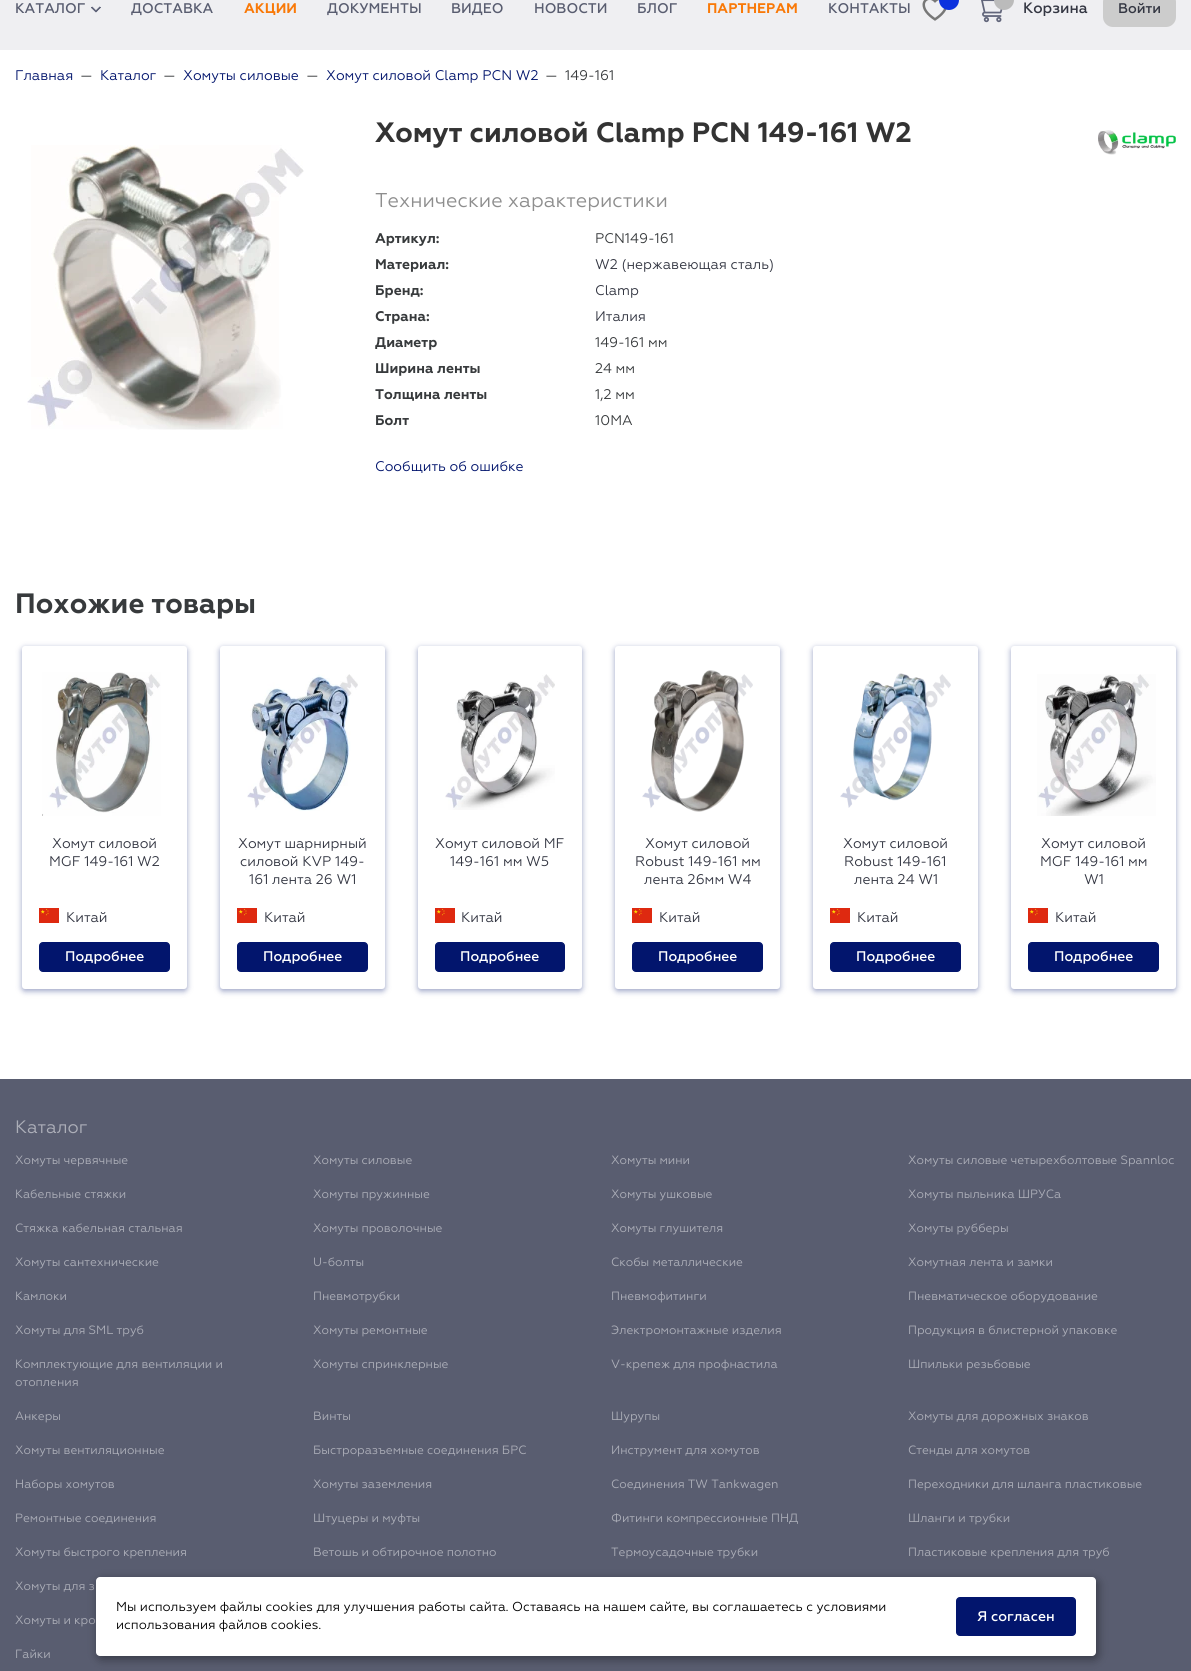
import math
import cairo

surface = cairo.ImageSurface(cairo.Format.RGB24, 1191, 1671)
ctx = cairo.Context(surface)
options = cairo.FontOptions()
options.set_hint_metrics(cairo.HintMetrics.OFF)
options.set_hint_style(cairo.HintStyle.NONE)
ctx.set_font_options(options)
ctx.set_miter_limit(4)


def ink(r, g, b):
    ctx.set_source_rgb(r / 255, g / 255, b / 255)


def write(x, y, s, family, size, color, bold=False, italic=False):
    ctx.select_font_face(family, cairo.FontSlant.ITALIC if italic else cairo.FontSlant.NORMAL, cairo.FontWeight.BOLD if bold else cairo.FontWeight.NORMAL)
    ctx.set_font_size(size)
    ink(*color)
    ctx.move_to(x, y)
    ctx.show_text(s)


def block(x, y, w, h, *color):
    ink(*color)
    ctx.rectangle(x, y, w, h)
    ctx.fill()


def round_path(x, y, w, h, r):
    ctx.new_sub_path()
    for i, (u, v) in enumerate([(x + w - r, y + h - r), (x + r, y + h - r), (x + r, y + r), (x + w - r, y + r)]):
        ctx.arc(u, v, r, i * math.pi / 2, (i + 1) * math.pi / 2)
    ctx.close_path()


def blur_box(x, y, w, h, r, blur, alpha):
    ctx.push_group_with_content(cairo.Content.ALPHA)
    ctx.set_operator(cairo.Operator.SOURCE)
    for i in range(15, -16, -2):
        e = blur * i / 6
        if min(w, h) + 2 * e > 0:
            ctx.set_source_rgba(0, 0, 0, alpha * math.erfc((i - 1) / 8.5) / 2)
            round_path(x - e, y - e, w + 2 * e, h + 2 * e, max(0, min(r + e + blur * .6, min(w, h) / 2 + e)))
            ctx.fill()
    ctx.mask(ctx.pop_group())


def paste(path, x, y, w, h):
    ctx.save()
    ctx.set_source_surface(cairo.ImageSurface.create_from_png(path), x, y)
    ctx.rectangle(x, y, w, h)
    ctx.fill()
    ctx.restore()


s1 = dict(family="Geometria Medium", size=14, color=(89, 93, 112))
s2 = dict(family="Geometria", size=14, color=(249, 121, 8), bold=True)
s3 = dict(family="Geometria Medium", size=15, color=(51, 54, 66))
s4 = dict(family="Geometria Medium", size=14, color=(51, 54, 66))
s5 = dict(family="Geometria", size=14, color=(2, 21, 109))
s6 = dict(family="Geometria", size=14, color=(55, 58, 60))
s7 = dict(family="Geometria", size=28, color=(51, 51, 51), bold=True)
s8 = dict(family="Geometria", size=20, color=(142, 142, 142))
s9 = dict(family="Geometria", size=14, color=(55, 58, 60), bold=True)
s10 = dict(family="Geometria", size=14, color=(51, 54, 66))
s11 = dict(family="Geometria", size=28, color=(55, 58, 60), bold=True)
s12 = dict(family="Geometria Medium", size=14, color=(255, 255, 255))
s13 = dict(family="Geometria", size=18, color=(172, 174, 184))
s14 = dict(family="Geometria", size=12, color=(172, 174, 184))
s15 = dict(family="Geometria", size=13, color=(0, 0, 0))

ink(255, 255, 255)
ctx.paint()
block(0, 0, 1191, 50, 239, 239, 242)
write(15, 13, "КАТАЛОГ", **s1)
paste("pic1.png", 91, 6, 10, 7)
write(131, 13, "ДОСТАВКА", **s1)
write(244, 13, "АКЦИИ", **s2)
write(327, 13, "ДОКУМЕНТЫ", **s1)
write(451, 13, "ВИДЕО", **s1)
write(534, 13, "НОВОСТИ", **s1)
write(637, 13, "БЛОГ", **s1)
write(707, 13, "ПАРТНЕРАМ", **s2)
write(828, 13, "КОНТАКТЫ", **s1)
paste("pic2.png", 922, 0, 25, 21)
ink(12, 49, 222)
ctx.arc(949, 0, 10, 0, 2 * math.pi)
ctx.fill()
paste("pic3.png", 981, 0, 22, 23)
ink(187, 187, 187)
ctx.arc(1004, 0, 10, 0, 2 * math.pi)
ctx.fill()
write(1023, 13, "Корзина", **s3)
ink(204, 204, 204)
round_path(1103, -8, 73, 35, 10)
ctx.fill()
write(1118, 13, "Войти", **s4)
write(15, 80, "Главная", **s5)
write(80, 80, "—", **s6)
write(100, 80, "Каталог", **s5)
write(163, 80, "—", **s6)
write(183, 80, "Хомуты силовые", **s5)
write(306, 80, "—", **s6)
write(326, 80, "Хомут силовой Clamp PCN W2", **s5)
write(545, 80, "—", **s6)
write(565, 80, "149-161", **s6)
paste("pic4.png", 27, 145, 277, 285)
write(375, 142, "Хомут силовой Clamp PCN 149-161 W2", **s7)
paste("pic5.png", 1098, 130, 78, 25)
write(375, 207, "Технические характеристики", **s8)
write(375, 243, "Артикул:", **s9)
write(595, 243, "PCN149-161", **s6)
write(375, 269, "Материал:", **s9)
write(595, 269, "W2 (нержавеющая сталь)", **s10)
write(375, 295, "Бренд:", **s9)
write(595, 295, "Clamp", **s10)
write(375, 321, "Страна:", **s9)
write(595, 321, "Италия", **s10)
write(375, 347, "Диаметр", **s9)
write(595, 347, "149-161 мм", **s6)
write(375, 373, "Ширина ленты", **s9)
write(595, 373, "24 мм", **s6)
write(375, 399, "Толщина ленты", **s9)
write(595, 399, "1,2 мм", **s6)
write(375, 425, "Болт", **s9)
write(595, 425, "10MA", **s6)
write(375, 471, "Сообщить об ошибке", **s5)
write(15, 613, "Похожие товары", **s11)
ink(2, 21, 109)
blur_box(22, 648, 165, 343, 3, 3, 0.4)
ink(255, 255, 255)
round_path(22, 646, 165, 343, 3)
ctx.fill()
paste("pic6.png", 42, 672, 119, 144)
write(52, 848, "Хомут силовой", **s10)
write(49, 866, "MGF 149-161 W2", **s10)
paste("pic7.png", 39, 908, 20, 15)
write(66, 922, "Китай", **s10)
ink(2, 21, 109)
round_path(39.5, 942.5, 130, 29, 3.5)
ctx.fill_preserve()
ctx.set_line_width(1)
ctx.stroke()
write(65, 961, "Подробнее", **s12)
ink(2, 21, 109)
blur_box(220, 648, 165, 343, 3, 3, 0.4)
ink(255, 255, 255)
round_path(220, 646, 165, 343, 3)
ctx.fill()
paste("pic8.png", 247, 674, 111, 137)
write(238, 848, "Хомут шарнирный", **s10)
write(240, 866, "силовой KVP 149-", **s10)
write(249, 884, "161 лента 26 W1", **s10)
paste("pic7.png", 237, 908, 20, 15)
write(264, 922, "Китай", **s10)
ink(2, 21, 109)
round_path(237.5, 942.5, 130, 29, 3.5)
ctx.fill_preserve()
ctx.stroke()
write(263, 961, "Подробнее", **s12)
ink(2, 21, 109)
blur_box(418, 648, 164, 343, 3, 3, 0.4)
ink(255, 255, 255)
round_path(418, 646, 164, 343, 3)
ctx.fill()
paste("pic9.png", 445, 674, 110, 136)
write(435, 848, "Хомут силовой MF", **s10)
write(450, 866, "149-161 мм W5", **s10)
paste("pic7.png", 435, 908, 20, 15)
write(461, 922, "Китай", **s10)
ink(2, 21, 109)
round_path(435.5, 942.5, 129, 29, 3.5)
ctx.fill_preserve()
ctx.stroke()
write(460, 961, "Подробнее", **s12)
ink(2, 21, 109)
blur_box(615, 648, 165, 343, 3, 3, 0.4)
ink(255, 255, 255)
round_path(615, 646, 165, 343, 3)
ctx.fill()
paste("pic10.png", 642, 670, 111, 142)
write(645, 848, "Хомут силовой", **s10)
write(635, 866, "Robust 149-161 мм", **s10)
write(644, 884, "лента 26мм W4", **s10)
paste("pic7.png", 632, 908, 20, 15)
write(659, 922, "Китай", **s10)
ink(2, 21, 109)
round_path(632.5, 942.5, 130, 29, 3.5)
ctx.fill_preserve()
ctx.stroke()
write(658, 961, "Подробнее", **s12)
ink(2, 21, 109)
blur_box(813, 648, 165, 343, 3, 3, 0.4)
ink(255, 255, 255)
round_path(813, 646, 165, 343, 3)
ctx.fill()
paste("pic11.png", 840, 673, 111, 135)
write(843, 848, "Хомут силовой", **s10)
write(844, 866, "Robust 149-161", **s10)
write(854, 884, "лента 24 W1", **s10)
paste("pic7.png", 830, 908, 20, 15)
write(857, 922, "Китай", **s10)
ink(2, 21, 109)
round_path(830.5, 942.5, 130, 29, 3.5)
ctx.fill_preserve()
ctx.stroke()
write(856, 961, "Подробнее", **s12)
ink(2, 21, 109)
blur_box(1011, 648, 165, 343, 3, 3, 0.4)
ink(255, 255, 255)
round_path(1011, 646, 165, 343, 3)
ctx.fill()
paste("pic12.png", 1037, 674, 119, 142)
write(1041, 848, "Хомут силовой", **s10)
write(1040, 866, "MGF 149-161 мм", **s10)
write(1084, 884, "W1", **s10)
paste("pic7.png", 1028, 908, 20, 15)
write(1055, 922, "Китай", **s10)
ink(2, 21, 109)
round_path(1028.5, 942.5, 130, 29, 3.5)
ctx.fill_preserve()
ctx.stroke()
write(1054, 961, "Подробнее", **s12)
block(0, 1079, 1191, 592, 89, 93, 112)
write(15, 1133, "Каталог", **s13)
write(15, 1164, "Хомуты червячные", **s14)
write(313, 1164, "Хомуты силовые", **s14)
write(611, 1164, "Хомуты мини", **s14)
write(908, 1164, "Хомуты силовые четырехболтовые Spannloc", **s14)
write(15, 1198, "Кабельные стяжки", **s14)
write(313, 1198, "Хомуты пружинные", **s14)
write(611, 1198, "Хомуты ушковые", **s14)
write(908, 1198, "Хомуты пыльника ШРУСа", **s14)
write(15, 1232, "Стяжка кабельная стальная", **s14)
write(313, 1232, "Хомуты проволочные", **s14)
write(611, 1232, "Хомуты глушителя", **s14)
write(908, 1232, "Хомуты рубберы", **s14)
write(15, 1266, "Хомуты сантехнические", **s14)
write(313, 1266, "U-болты", **s14)
write(611, 1266, "Скобы металлические", **s14)
write(908, 1266, "Хомутная лента и замки", **s14)
write(15, 1300, "Камлоки", **s14)
write(313, 1300, "Пневмотрубки", **s14)
write(611, 1300, "Пневмофитинги", **s14)
write(908, 1300, "Пневматическое оборудование", **s14)
write(15, 1334, "Хомуты для SML труб", **s14)
write(313, 1334, "Хомуты ремонтные", **s14)
write(611, 1334, "Электромонтажные изделия", **s14)
write(908, 1334, "Продукция в блистерной упаковке", **s14)
write(15, 1368, "Комплектующие для вентиляции и", **s14)
write(15, 1386, "отопления", **s14)
write(313, 1368, "Хомуты спринклерные", **s14)
write(611, 1368, "V-крепеж для профнастила", **s14)
write(908, 1368, "Шпильки резьбовые", **s14)
write(15, 1420, "Анкеры", **s14)
write(313, 1420, "Винты", **s14)
write(611, 1420, "Шурупы", **s14)
write(908, 1420, "Хомуты для дорожных знаков", **s14)
write(15, 1454, "Хомуты вентиляционные", **s14)
write(313, 1454, "Быстроразъемные соединения БРС", **s14)
write(611, 1454, "Инструмент для хомутов", **s14)
write(908, 1454, "Стенды для хомутов", **s14)
write(15, 1488, "Наборы хомутов", **s14)
write(313, 1488, "Хомуты заземления", **s14)
write(611, 1488, "Соединения TW Tankwagen", **s14)
write(908, 1488, "Переходники для шланга пластиковые", **s14)
write(15, 1522, "Ремонтные соединения", **s14)
write(313, 1522, "Штуцеры и муфты", **s14)
write(611, 1522, "Фитинги компрессионные ПНД", **s14)
write(908, 1522, "Шланги и трубки", **s14)
write(15, 1556, "Хомуты быстрого крепления", **s14)
write(313, 1556, "Ветошь и обтирочное полотно", **s14)
write(611, 1556, "Термоусадочные трубки", **s14)
write(908, 1556, "Пластиковые крепления для труб", **s14)
write(15, 1590, "Хомуты для з", **s14)
write(15, 1624, "Хомуты и кро", **s14)
write(15, 1658, "Гайки", **s14)
ink(0, 0, 0)
blur_box(98, 1580, 1000, 79, 4, 5, 0.4)
ink(255, 255, 255)
round_path(96, 1577, 1000, 79, 4)
ctx.fill()
write(116, 1611, "Мы используем файлы cookies для улучшения работы сайта. Оставаясь на нашем сайте, вы соглашаетесь с условиями", **s15)
write(116, 1629, "использования файлов cookies.", **s15)
ink(2, 21, 109)
round_path(956.5, 1597.5, 119, 38, 3.5)
ctx.fill_preserve()
ctx.stroke()
write(977, 1621, "Я согласен", **s12)
surface.write_to_png("screenshot.png")
